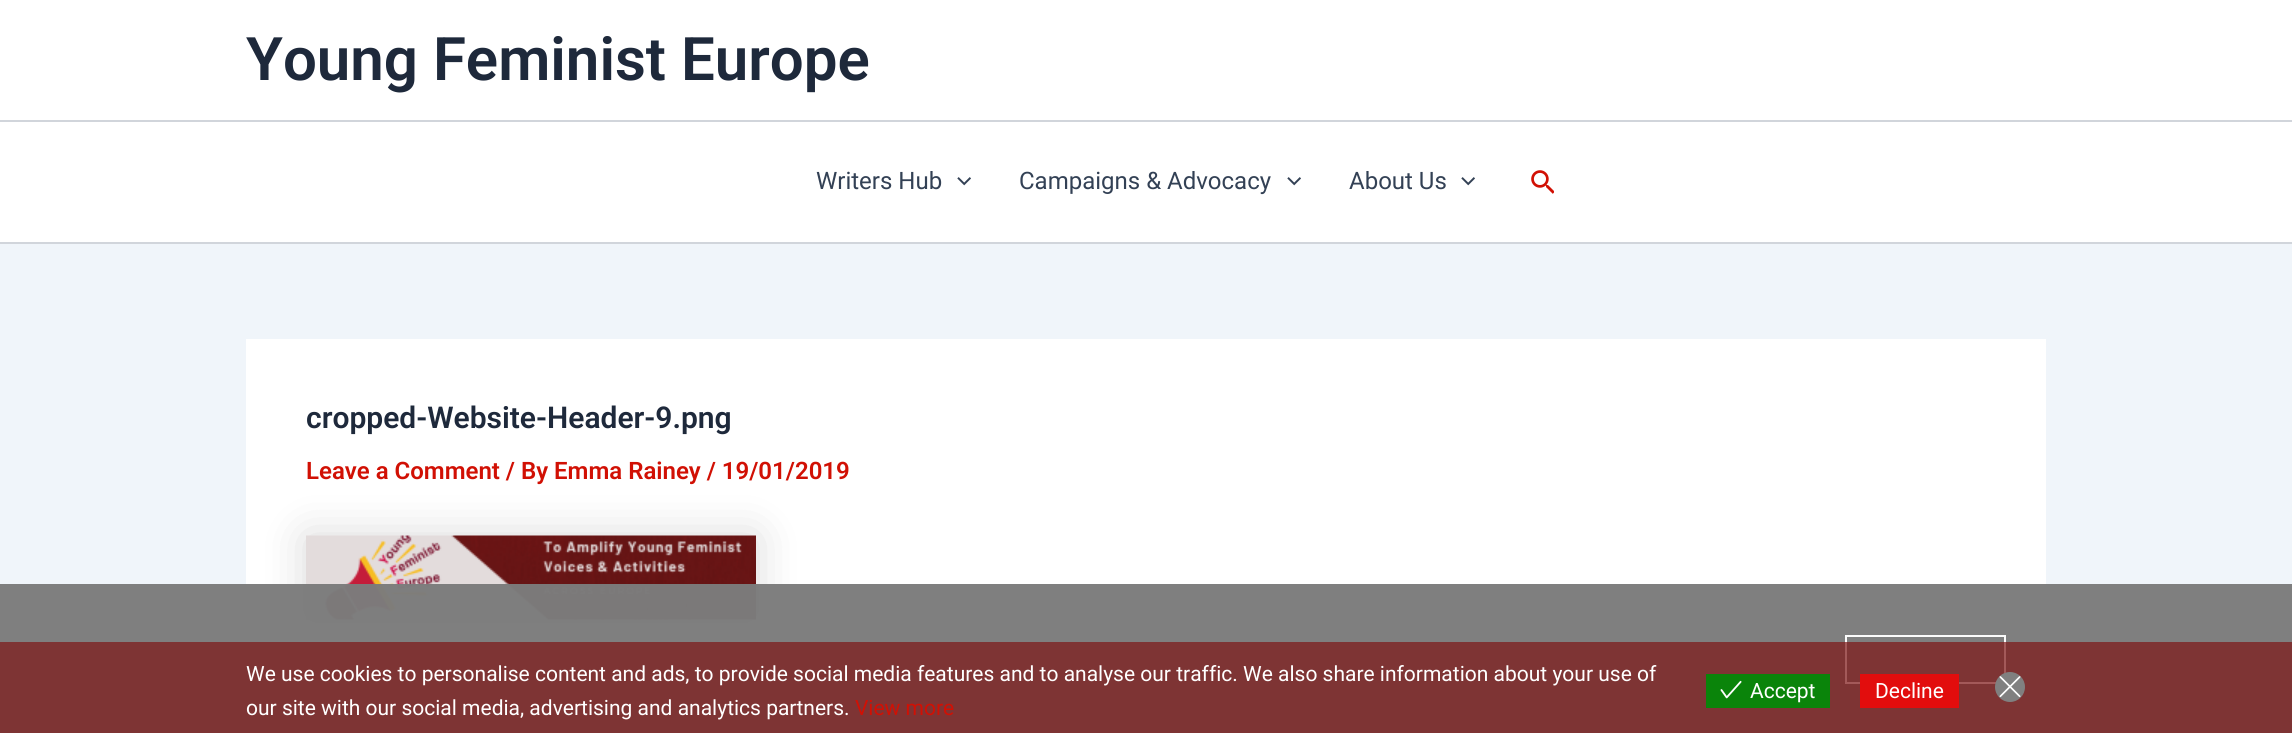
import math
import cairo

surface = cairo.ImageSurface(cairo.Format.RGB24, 2292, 733)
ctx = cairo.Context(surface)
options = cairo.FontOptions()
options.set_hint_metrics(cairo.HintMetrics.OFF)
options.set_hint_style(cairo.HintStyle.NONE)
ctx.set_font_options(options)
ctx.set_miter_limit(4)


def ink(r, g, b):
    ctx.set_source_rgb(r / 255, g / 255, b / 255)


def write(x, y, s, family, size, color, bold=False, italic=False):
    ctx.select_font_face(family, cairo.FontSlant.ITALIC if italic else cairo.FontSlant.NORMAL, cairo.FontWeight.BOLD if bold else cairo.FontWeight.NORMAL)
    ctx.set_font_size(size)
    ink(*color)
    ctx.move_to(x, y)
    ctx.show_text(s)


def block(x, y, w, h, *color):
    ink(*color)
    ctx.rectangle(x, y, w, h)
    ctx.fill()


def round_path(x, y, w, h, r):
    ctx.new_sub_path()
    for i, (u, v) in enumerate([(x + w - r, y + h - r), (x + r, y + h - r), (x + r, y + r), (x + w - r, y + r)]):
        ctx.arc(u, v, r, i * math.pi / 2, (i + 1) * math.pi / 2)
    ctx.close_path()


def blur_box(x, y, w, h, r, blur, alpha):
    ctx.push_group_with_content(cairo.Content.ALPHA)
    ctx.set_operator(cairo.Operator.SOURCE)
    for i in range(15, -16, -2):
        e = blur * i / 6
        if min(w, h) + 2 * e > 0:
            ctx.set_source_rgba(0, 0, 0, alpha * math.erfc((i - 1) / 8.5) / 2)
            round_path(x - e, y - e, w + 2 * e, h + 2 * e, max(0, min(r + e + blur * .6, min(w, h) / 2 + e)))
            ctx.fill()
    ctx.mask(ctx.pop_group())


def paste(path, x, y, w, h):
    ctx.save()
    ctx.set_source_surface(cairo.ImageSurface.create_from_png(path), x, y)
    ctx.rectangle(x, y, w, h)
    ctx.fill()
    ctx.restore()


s1 = dict(family="Roboto SemiBold", size=60, color=(30, 41, 59))
s2 = dict(family="Roboto", size=24, color=(51, 65, 85))
s3 = dict(family="Roboto SemiBold", size=30, color=(30, 41, 59))
s4 = dict(family="Roboto SemiBold", size=24, color=(209, 16, 4))
s5 = dict(family="Roboto", size=21, color=(255, 255, 255))
s6 = dict(family="Roboto", size=21, color=(209, 16, 4))

ink(240, 245, 250)
ctx.paint()
block(0, 0, 2292, 120, 255, 255, 255)
block(0, 120, 2292, 2, 209, 213, 219)
write(246, 80, "Young Feminist Europe", **s1)
block(0, 122, 2292, 120, 255, 255, 255)
block(0, 242, 2292, 2, 209, 213, 219)
write(816, 189, "Writers Hub", **s2)
paste("pic1.png", 957, 177, 14, 9)
write(1019, 189, "Campaigns & Advocacy", **s2)
paste("pic1.png", 1287, 177, 14, 9)
write(1349, 189, "About Us", **s2)
paste("pic1.png", 1461, 177, 14, 9)
paste("pic2.png", 1531, 170, 23, 24)
block(246, 339, 1800, 394, 255, 255, 255)
write(306, 428, "cropped-Website-Header-9.png", **s3)
write(306, 479, "Leave a Comment / By Emma Rainey / 19/01/2019", **s4)
block(306, 662, 1680, 71, 248, 248, 248)
block(306, 659, 1680, 3, 204, 204, 204)
ink(0, 0, 0)
blur_box(306, 536, 450, 84, 0, 22.5, 0.15)
paste("pic3.png", 306, 535, 450, 85)
ctx.set_source_rgba(0.486, 0.486, 0.486, 0.97)
ctx.rectangle(0, 584, 2292, 149)
ctx.fill()
ctx.rectangle(1846, 636, 159, 47)
ink(251, 251, 251)
ctx.stroke()
ctx.set_source_rgba(0.494, 0.082, 0.082, 0.7)
ctx.rectangle(0, 642, 2292, 91)
ctx.fill()
write(246, 681, "We use cookies to personalise content and ads, to provide social media features and to analyse our traffic. We also share information about your use of", **s5)
write(246, 715, "our site with our social media, advertising and analytics partners.", **s5)
write(855, 715, "View more", **s6)
block(1706, 674, 124, 34, 10, 132, 10)
paste("pic4.png", 1720, 680, 22, 19)
write(1750, 698, "Accept", **s5)
block(1860, 674, 99, 34, 226, 13, 13)
write(1875, 698, "Decline", **s5)
ink(128, 128, 128)
ctx.new_path()
ctx.arc(2010, 687, 15, 0, 2 * math.pi)
ctx.fill()
paste("pic5.png", 1999, 676, 22, 22)
surface.write_to_png("screenshot.png")
